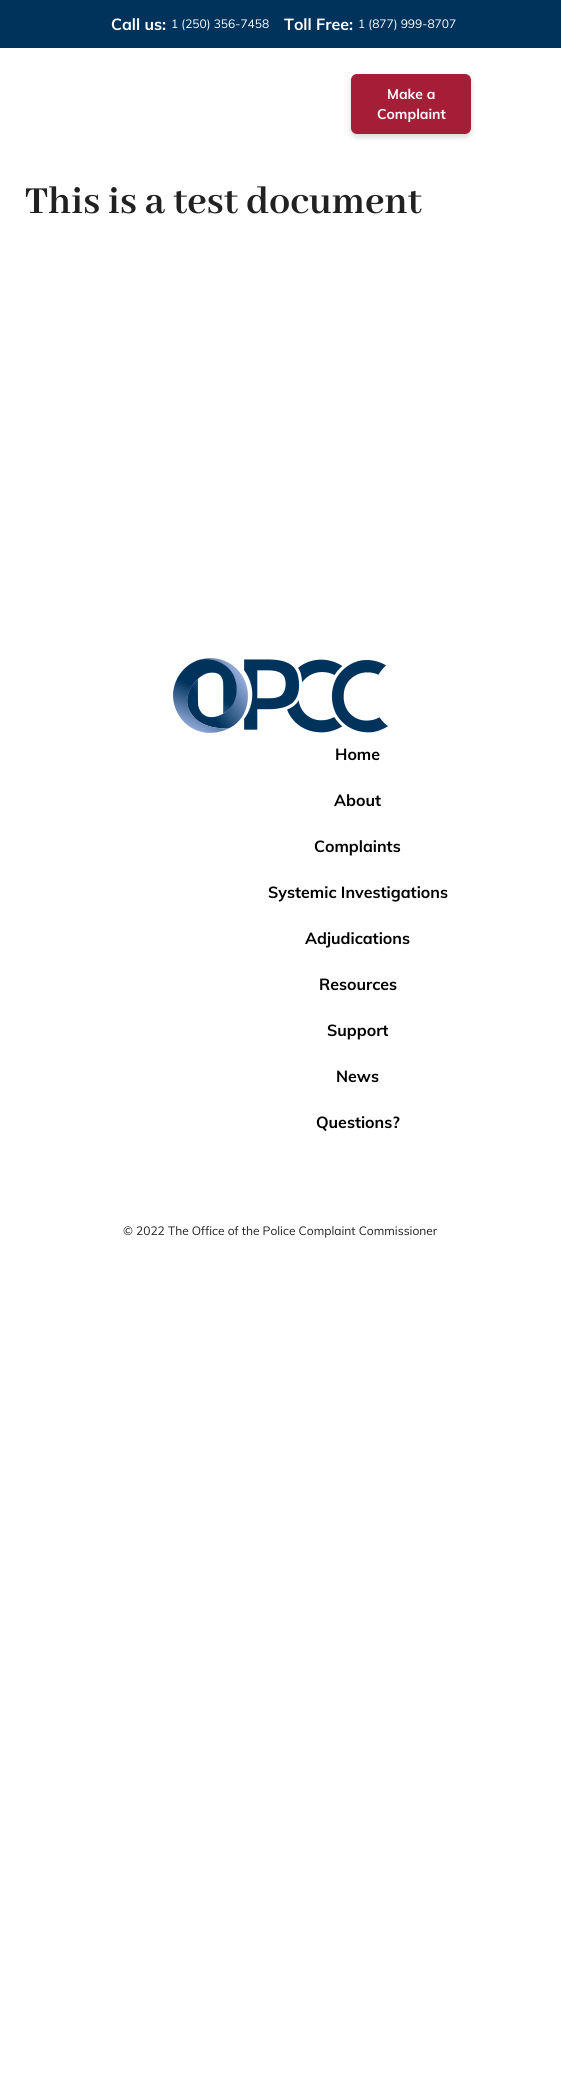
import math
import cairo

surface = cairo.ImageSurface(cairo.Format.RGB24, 561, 2087)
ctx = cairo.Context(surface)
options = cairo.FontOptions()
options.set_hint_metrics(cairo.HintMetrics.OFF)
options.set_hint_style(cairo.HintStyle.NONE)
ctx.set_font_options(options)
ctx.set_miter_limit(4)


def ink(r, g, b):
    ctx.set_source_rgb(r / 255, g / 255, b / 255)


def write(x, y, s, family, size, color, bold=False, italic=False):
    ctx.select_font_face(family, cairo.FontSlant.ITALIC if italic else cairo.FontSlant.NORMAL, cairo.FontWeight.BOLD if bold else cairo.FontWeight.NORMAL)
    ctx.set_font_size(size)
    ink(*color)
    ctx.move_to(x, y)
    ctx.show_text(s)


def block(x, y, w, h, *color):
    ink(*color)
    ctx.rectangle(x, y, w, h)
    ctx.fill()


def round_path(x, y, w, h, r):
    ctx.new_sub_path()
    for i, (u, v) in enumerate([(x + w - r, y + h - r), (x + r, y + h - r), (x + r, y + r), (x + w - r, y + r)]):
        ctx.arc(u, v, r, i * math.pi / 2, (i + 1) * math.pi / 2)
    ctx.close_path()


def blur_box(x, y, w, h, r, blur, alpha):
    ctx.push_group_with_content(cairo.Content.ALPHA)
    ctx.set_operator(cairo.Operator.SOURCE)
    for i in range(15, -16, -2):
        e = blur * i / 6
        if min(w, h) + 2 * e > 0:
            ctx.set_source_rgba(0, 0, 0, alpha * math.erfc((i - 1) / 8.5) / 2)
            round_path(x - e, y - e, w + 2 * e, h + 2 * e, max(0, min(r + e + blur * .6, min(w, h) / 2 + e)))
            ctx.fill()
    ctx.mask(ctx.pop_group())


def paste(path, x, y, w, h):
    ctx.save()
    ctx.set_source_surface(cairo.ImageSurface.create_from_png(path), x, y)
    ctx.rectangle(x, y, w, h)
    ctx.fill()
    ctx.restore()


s1 = dict(family="Muli", size=16, color=(255, 255, 255), bold=True)
s2 = dict(family="Muli", size=12, color=(255, 255, 255))
s3 = dict(family="Muli", size=14, color=(255, 255, 255), bold=True)
s4 = dict(family="Abhaya Libre", size=42, color=(33, 33, 33), bold=True)
s5 = dict(family="Muli", size=16, color=(0, 0, 0), bold=True)
s6 = dict(family="Muli", size=12, color=(33, 33, 33))

ink(255, 255, 255)
ctx.paint()
block(0, 0, 561, 48, 0, 51, 92)
write(111, 30, "Call us:", **s1)
write(171, 28, "1 (250) 356-7458", **s2)
write(284, 30, "Toll Free:", **s1)
write(358, 28, "1 (877) 999-8707", **s2)
ink(0, 0, 0)
blur_box(351, 77, 120, 60, 6, 3, 0.16)
ink(166, 29, 55)
round_path(351, 74, 120, 60, 6)
ctx.fill()
write(387, 99, "Make a", **s3)
write(377, 119, "Complaint", **s3)
write(25, 213, "This is a test document", **s4)
write(335, 760, "Home", **s5)
write(334, 806, "About", **s5)
write(314, 852, "Complaints", **s5)
write(268, 898, "Systemic Investigations", **s5)
write(305, 944, "Adjudications", **s5)
write(319, 990, "Resources", **s5)
write(327, 1036, "Support", **s5)
write(336, 1082, "News", **s5)
write(316, 1128, "Questions?", **s5)
paste("pic1.png", 173, 658, 215, 75)
write(123, 1235, "© 2022 The Office of the Police Complaint Commissioner", **s6)
surface.write_to_png("screenshot.png")
